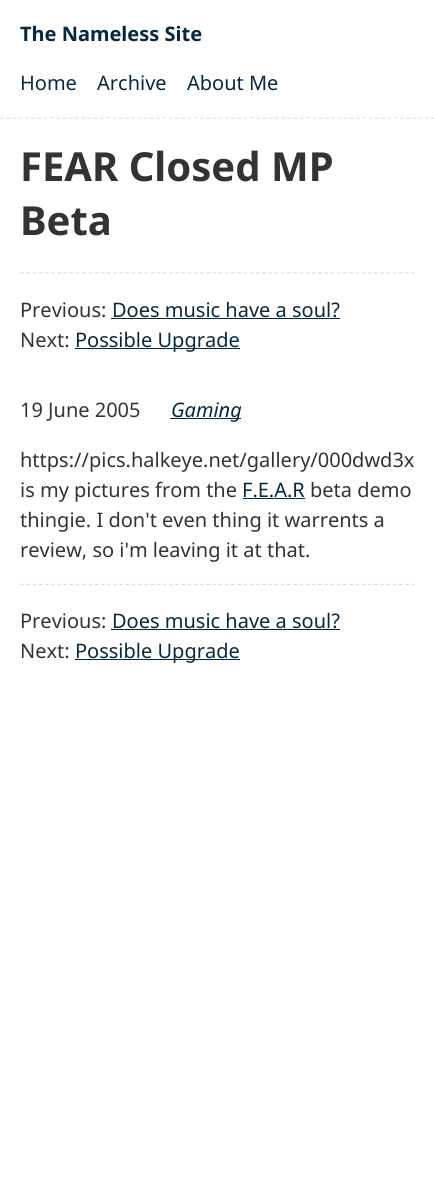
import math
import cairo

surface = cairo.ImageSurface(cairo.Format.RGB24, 434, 1178)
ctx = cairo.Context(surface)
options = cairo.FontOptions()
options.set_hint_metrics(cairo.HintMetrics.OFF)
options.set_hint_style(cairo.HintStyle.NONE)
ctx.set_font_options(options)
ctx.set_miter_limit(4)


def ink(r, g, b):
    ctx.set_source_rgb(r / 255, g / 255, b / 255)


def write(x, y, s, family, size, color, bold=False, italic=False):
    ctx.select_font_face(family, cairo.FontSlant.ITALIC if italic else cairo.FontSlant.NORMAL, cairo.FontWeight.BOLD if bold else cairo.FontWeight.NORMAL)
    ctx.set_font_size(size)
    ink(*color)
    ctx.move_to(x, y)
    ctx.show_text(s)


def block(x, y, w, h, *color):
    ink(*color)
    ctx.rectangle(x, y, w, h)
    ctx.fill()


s1 = dict(family="Noto Sans", size=20, color=(8, 40, 64), bold=True)
s2 = dict(family="Noto Sans", size=20, color=(8, 40, 64))
s3 = dict(family="Noto Sans", size=40, color=(51, 51, 51), bold=True)
s4 = dict(family="Noto Sans", size=20, color=(51, 51, 51))
s5 = dict(family="Noto Sans", size=20, color=(8, 40, 64), italic=True)

ink(255, 255, 255)
ctx.paint()
ctx.new_path()
ctx.move_to(0, 118)
ctx.line_to(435, 118)
ink(224, 224, 224)
ctx.set_line_width(1.2)
ctx.set_dash([3.75, 2.5])
ctx.stroke()
write(20, 41, "The Nameless Site", **s1)
write(20, 90, "Home", **s2)
write(97, 90, "Archive", **s2)
write(187, 90, "About Me", **s2)
write(20, 181, "FEAR Closed MP", **s3)
write(20, 235, "Beta", **s3)
ctx.new_path()
ctx.move_to(20, 273)
ctx.line_to(415, 273)
ink(224, 224, 224)
ctx.set_dash([3.75, 2.46])
ctx.stroke()
write(20, 317, "Previous:", **s4)
write(112, 317, "Does music have a soul?", **s2)
block(111, 318, 229, 1, 8, 40, 64)
write(20, 347, "Next:", **s4)
block(75, 348, 165, 1, 8, 40, 64)
write(75, 347, "Possible Upgrade", **s2)
write(20, 417, "19 June 2005", **s4)
block(170, 418, 71, 1, 8, 40, 64)
write(171, 417, "Gaming", **s5)
write(20, 467, "https://pics.halkeye.net/gallery/000dwd3x", **s4)
write(20, 497, "is my pictures from the", **s4)
write(242, 497, "F.E.A.R", **s2)
block(243, 498, 62, 1, 8, 40, 64)
write(310, 497, "beta demo", **s4)
write(20, 527, "thingie. I don't even thing it warrents a", **s4)
write(20, 557, "review, so i'm leaving it at that.", **s4)
ctx.new_path()
ctx.move_to(20, 584.5)
ctx.line_to(415, 584.5)
ink(224, 224, 224)
ctx.stroke()
write(20, 628, "Previous:", **s4)
write(112, 628, "Does music have a soul?", **s2)
block(111, 629, 229, 1, 8, 40, 64)
write(20, 658, "Next:", **s4)
block(75, 659, 165, 1, 8, 40, 64)
write(75, 658, "Possible Upgrade", **s2)
surface.write_to_png("screenshot.png")
